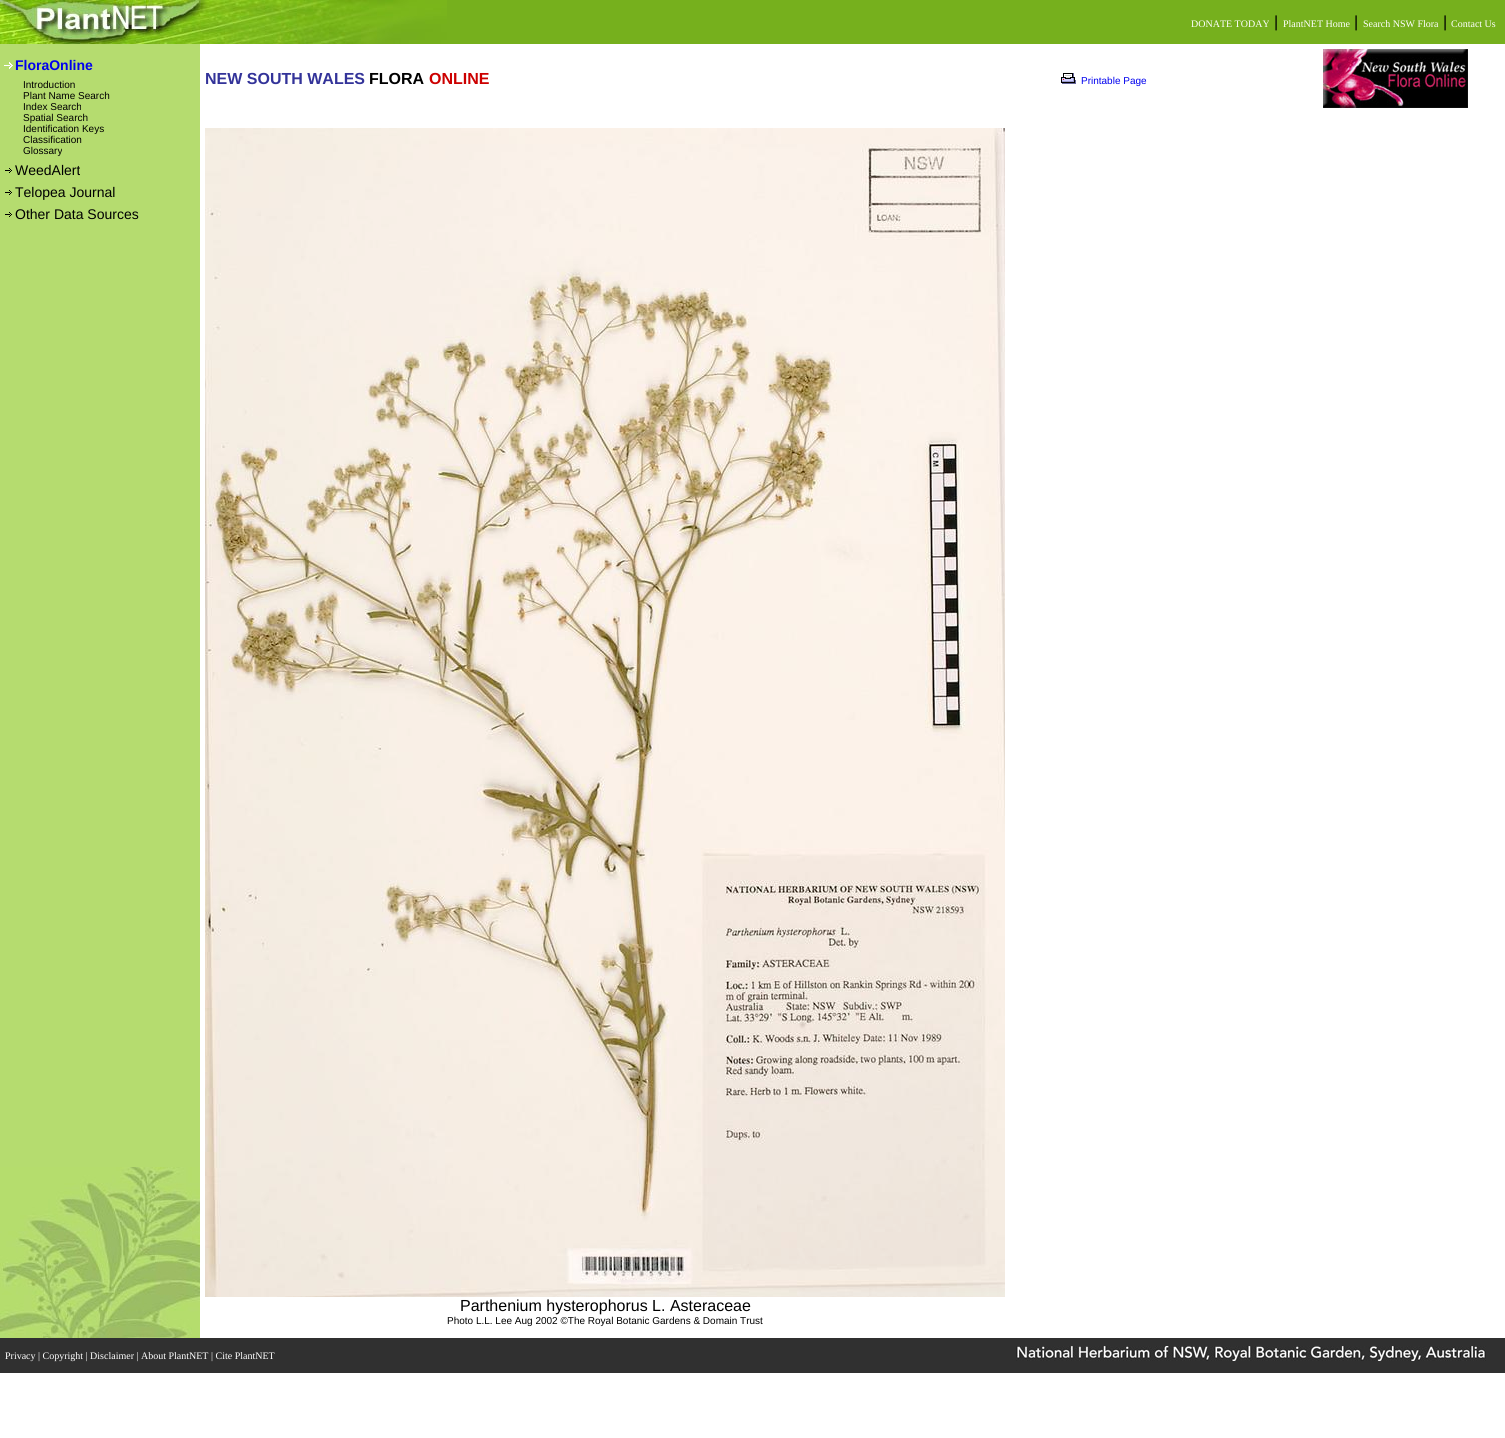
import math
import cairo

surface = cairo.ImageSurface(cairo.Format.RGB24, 1505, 1438)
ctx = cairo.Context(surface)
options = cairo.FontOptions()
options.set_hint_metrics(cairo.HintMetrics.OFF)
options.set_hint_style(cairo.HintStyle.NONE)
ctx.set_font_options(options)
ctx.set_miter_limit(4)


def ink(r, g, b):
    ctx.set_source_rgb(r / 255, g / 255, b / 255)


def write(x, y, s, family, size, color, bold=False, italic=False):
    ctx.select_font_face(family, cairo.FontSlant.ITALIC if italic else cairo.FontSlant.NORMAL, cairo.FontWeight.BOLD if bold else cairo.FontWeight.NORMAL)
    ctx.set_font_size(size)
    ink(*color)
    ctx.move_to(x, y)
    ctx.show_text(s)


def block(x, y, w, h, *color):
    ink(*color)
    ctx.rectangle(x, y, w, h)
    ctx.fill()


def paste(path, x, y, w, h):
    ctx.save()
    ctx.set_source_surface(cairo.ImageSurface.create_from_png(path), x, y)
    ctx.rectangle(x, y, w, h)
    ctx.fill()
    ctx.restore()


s1 = dict(family="Liberation Serif", size=10, color=(255, 255, 255))
s2 = dict(family="Liberation Sans", size=16, color=(0, 0, 0))
s3 = dict(family="Liberation Sans", size=14, color=(0, 0, 238), bold=True)
s4 = dict(family="Liberation Sans", size=10, color=(0, 0, 0))
s5 = dict(family="Liberation Sans", size=14, color=(0, 0, 0))
s6 = dict(family="Liberation Sans", size=16, color=(51, 51, 153), bold=True)
s7 = dict(family="Liberation Sans", size=16, color=(0, 0, 0), bold=True)
s8 = dict(family="Liberation Sans", size=16, color=(204, 0, 0), bold=True)
s9 = dict(family="Liberation Sans", size=10, color=(0, 0, 238))

ink(255, 255, 255)
ctx.paint()
paste("pic1.png", 0, 0, 201, 44)
block(447, 0, 1058, 44, 118, 176, 29)
paste("pic2.png", 201, 0, 246, 44)
write(1191, 27, "DONATE TODAY", **s1)
write(1274, 27, "|", **s2)
write(1283, 27, "PlantNET Home", **s1)
write(1354, 27, "|", **s2)
write(1363, 27, "Search NSW Flora", **s1)
write(1443, 27, "|", **s2)
write(1451, 27, "Contact Us", **s1)
block(0, 44, 200, 1123, 181, 220, 111)
paste("pic3.png", 0, 1167, 200, 171)
paste("pic4.png", 4, 62, 9, 7)
write(15, 70, "FloraOnline", **s3)
write(23, 88, "Introduction", **s4)
write(23, 99, "Plant Name Search", **s4)
write(23, 110, "Index Search", **s4)
write(23, 121, "Spatial Search", **s4)
write(23, 132, "Identification Keys", **s4)
write(23, 143, "Classification", **s4)
write(23, 154, "Glossary", **s4)
paste("pic5.png", 5, 168, 7, 5)
write(15, 175, "WeedAlert", **s5)
paste("pic5.png", 5, 190, 7, 5)
write(15, 197, "Telopea Journal", **s5)
paste("pic5.png", 5, 212, 7, 5)
write(15, 219, "Other Data Sources", **s5)
write(205, 84, "NEW SOUTH WALES", **s6)
write(369, 84, "FLORA", **s7)
write(429, 84, "ONLINE", **s8)
paste("pic6.png", 1061, 73, 15, 11)
write(1081, 84, "Printable Page", **s9)
paste("pic7.png", 1323, 49, 145, 59)
paste("pic8.png", 205, 128, 800, 1169)
write(460, 1311, "Parthenium hysterophorus L. Asteraceae", **s2)
write(447, 1324, "Photo L.L. Lee Aug 2002 ©The Royal Botanic Gardens & Domain Trust", **s4)
block(0, 1338, 1505, 35, 48, 48, 48)
write(5, 1359, "Privacy | Copyright | Disclaimer | About PlantNET | Cite PlantNET", **s1)
paste("pic9.png", 1016, 1346, 470, 15)
surface.write_to_png("screenshot.png")
